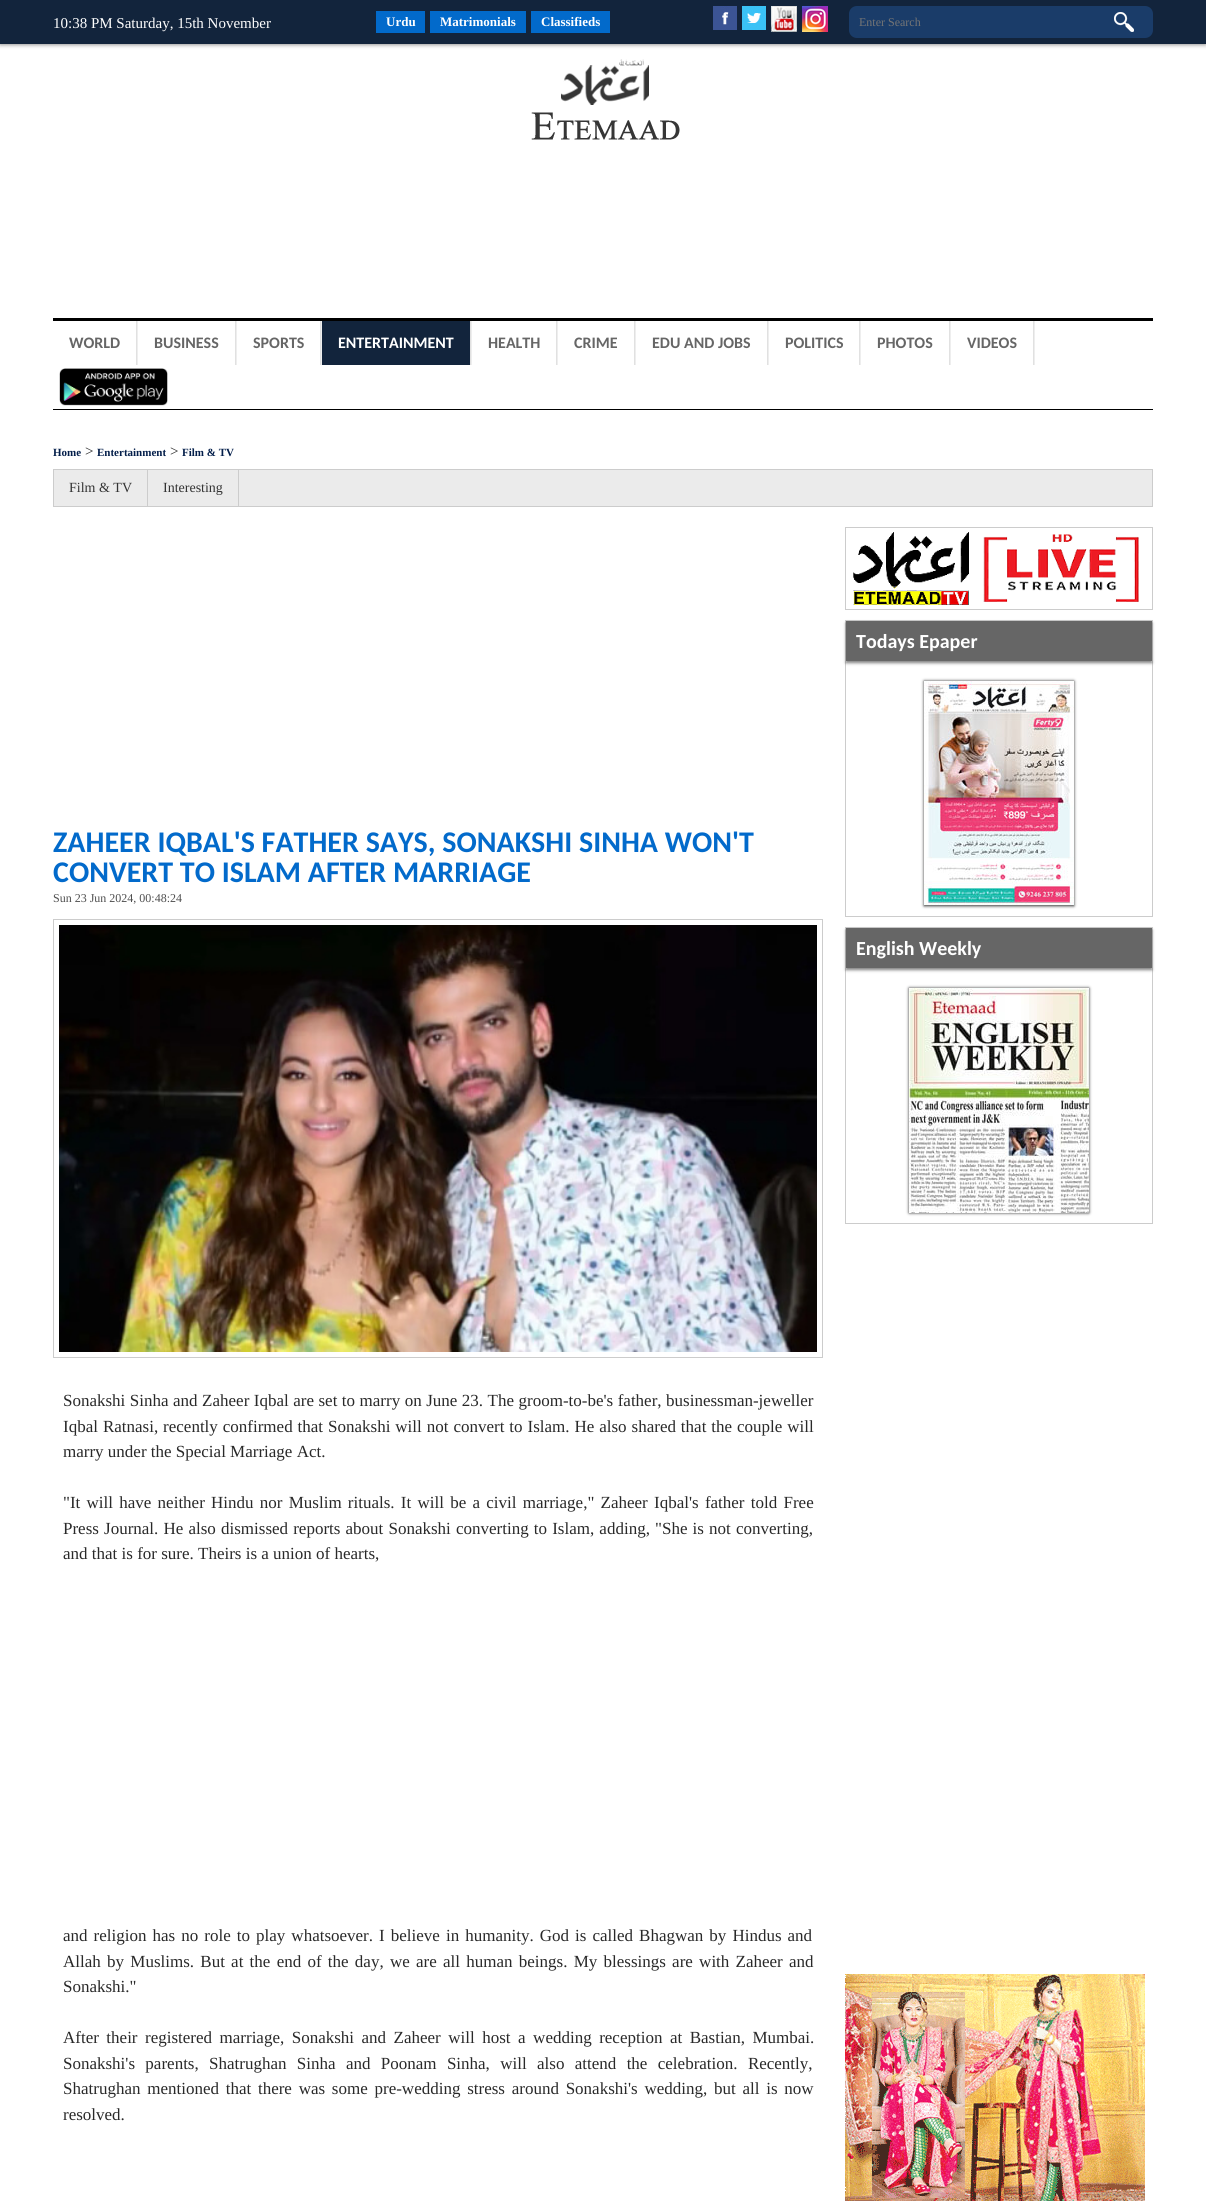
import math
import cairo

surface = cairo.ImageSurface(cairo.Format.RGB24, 1206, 2201)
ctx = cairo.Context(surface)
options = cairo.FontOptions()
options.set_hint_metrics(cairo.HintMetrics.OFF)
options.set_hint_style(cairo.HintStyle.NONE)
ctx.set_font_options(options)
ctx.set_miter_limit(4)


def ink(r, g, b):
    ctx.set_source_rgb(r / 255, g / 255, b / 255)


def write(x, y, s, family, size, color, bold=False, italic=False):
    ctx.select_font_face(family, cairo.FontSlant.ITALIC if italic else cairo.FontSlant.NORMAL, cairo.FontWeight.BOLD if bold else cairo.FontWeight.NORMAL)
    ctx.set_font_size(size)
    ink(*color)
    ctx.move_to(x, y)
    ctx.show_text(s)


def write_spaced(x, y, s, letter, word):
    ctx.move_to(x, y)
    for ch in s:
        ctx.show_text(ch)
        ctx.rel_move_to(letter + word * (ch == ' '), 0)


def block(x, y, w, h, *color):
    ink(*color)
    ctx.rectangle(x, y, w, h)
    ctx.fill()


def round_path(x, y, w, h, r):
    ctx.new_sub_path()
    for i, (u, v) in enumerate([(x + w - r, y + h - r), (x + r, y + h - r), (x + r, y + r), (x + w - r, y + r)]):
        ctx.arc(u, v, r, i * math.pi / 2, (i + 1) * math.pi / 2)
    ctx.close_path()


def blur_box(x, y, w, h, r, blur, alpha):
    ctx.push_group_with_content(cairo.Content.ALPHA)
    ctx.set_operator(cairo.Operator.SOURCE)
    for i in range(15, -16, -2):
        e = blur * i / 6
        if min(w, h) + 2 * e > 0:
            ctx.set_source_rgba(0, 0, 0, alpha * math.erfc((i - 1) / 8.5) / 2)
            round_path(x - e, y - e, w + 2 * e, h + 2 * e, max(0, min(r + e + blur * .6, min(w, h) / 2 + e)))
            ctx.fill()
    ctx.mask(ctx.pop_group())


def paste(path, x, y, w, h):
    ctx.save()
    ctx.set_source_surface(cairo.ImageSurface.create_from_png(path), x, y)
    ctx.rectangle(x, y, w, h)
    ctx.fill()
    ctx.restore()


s1 = dict(family="Liberation Serif", size=15, color=(255, 255, 255))
s2 = dict(family="Liberation Serif", size=13, color=(255, 255, 255), bold=True)
s3 = dict(family="Liberation Serif", size=12, color=(117, 117, 117))
s4 = dict(family="Carlito", size=16, color=(102, 102, 102), bold=True)
s5 = dict(family="Carlito", size=16, color=(255, 255, 255), bold=True)
s6 = dict(family="Liberation Serif", size=11, color=(3, 30, 74), bold=True)
s7 = dict(family="Liberation Serif", size=15, color=(41, 41, 41))
s8 = dict(family="Liberation Serif", size=14, color=(51, 51, 51))
s9 = dict(family="Carlito", size=20, color=(255, 255, 255), bold=True)
s10 = dict(family="Carlito", size=30, color=(2, 106, 203), bold=True)
s11 = dict(family="Liberation Serif", size=12, color=(78, 78, 78))
s12 = dict(family="Liberation Serif", size=17, color=(41, 41, 41))

ink(255, 255, 255)
ctx.paint()
ink(0, 0, 0)
blur_box(0, 0, 1206, 44, 0, 2.5, 0.6)
block(0, 0, 1206, 44, 18, 36, 60)
write(53, 28, "10:38 PM Saturday, 15th November", **s1)
block(376, 11, 49, 22, 2, 106, 203)
write(386, 26, "Urdu", **s2)
block(430, 11, 96, 22, 2, 106, 203)
write(440, 26, "Matrimonials", **s2)
block(531, 11, 79, 22, 2, 106, 203)
write(541, 26, "Classifieds", **s2)
paste("pic1.png", 713, 6, 24, 24)
paste("pic2.png", 742, 6, 24, 24)
paste("pic3.png", 771, 6, 26, 26)
paste("pic4.png", 802, 6, 26, 26)
ink(26, 60, 105)
ctx.new_path()
ctx.move_to(857, 6)
ctx.line_to(1096, 6)
ctx.line_to(1096, 38)
ctx.line_to(857, 38)
ctx.curve_to(852.5, 38, 849, 34.5, 849, 30)
ctx.line_to(849, 14)
ctx.curve_to(849, 9.5, 852.5, 6, 857, 6)
ctx.close_path()
ctx.fill()
write(859, 26, "Enter Search", **s3)
ink(26, 60, 105)
ctx.new_path()
ctx.move_to(1096, 6)
ctx.line_to(1145, 6)
ctx.curve_to(1149.5, 6, 1153, 9.5, 1153, 14)
ctx.line_to(1153, 30)
ctx.curve_to(1153, 34.5, 1149.5, 38, 1145, 38)
ctx.line_to(1096, 38)
ctx.close_path()
ctx.fill()
paste("pic5.png", 1114, 12, 20, 20)
paste("pic6.png", 531, 59, 149, 81)
block(53, 318, 1100, 3, 0, 0, 0)
block(53, 409, 1100, 1, 0, 0, 0)
paste("pic7.png", 136, 321, 2, 44)
write(69, 348, "WORLD", **s4)
paste("pic7.png", 235, 321, 2, 44)
write(154, 348, "BUSINESS", **s4)
paste("pic7.png", 320, 321, 2, 44)
write(253, 348, "SPORTS", **s4)
block(322, 321, 148, 44, 18, 36, 60)
paste("pic7.png", 470, 321, 2, 44)
write(338, 348, "ENTERTAINMENT", **s5)
paste("pic7.png", 556, 321, 2, 44)
write(488, 348, "HEALTH", **s4)
paste("pic7.png", 634, 321, 2, 44)
write(574, 348, "CRIME", **s4)
paste("pic7.png", 767, 321, 2, 44)
write(652, 348, "EDU AND JOBS", **s4)
paste("pic7.png", 859, 321, 2, 44)
write(785, 348, "POLITICS", **s4)
paste("pic7.png", 949, 321, 2, 44)
write(877, 348, "PHOTOS", **s4)
paste("pic7.png", 1033, 321, 2, 44)
write(967, 348, "VIDEOS", **s4)
paste("pic8.png", 59, 368, 109, 38)
write(53, 456, "Home", **s6)
write(85, 456, ">", **s7)
write(97, 456, "Entertainment", **s6)
write(170, 456, ">", **s7)
write(182, 456, "Film & TV", **s6)
ink(235, 235, 235)
ctx.rectangle(53.5, 469.5, 1099, 37)
ctx.fill_preserve()
ink(204, 204, 204)
ctx.set_line_width(1)
ctx.stroke()
block(147, 470, 1, 36, 204, 204, 204)
write(69, 492, "Film & TV", **s8)
block(238, 470, 1, 36, 204, 204, 204)
write(163, 492, "Interesting", **s8)
ctx.rectangle(845.5, 527.5, 307, 82)
ink(204, 204, 204)
ctx.stroke()
paste("pic9.png", 853, 532, 286, 73)
ctx.rectangle(845.5, 620.5, 307, 296)
ctx.stroke()
ink(0, 0, 0)
blur_box(846, 623, 306, 40, 0, 1.5, 0.5)
block(846, 621, 306, 40, 102, 102, 102)
write(856, 648, "Todays Epaper", **s9)
ink(0, 0, 0)
blur_box(924, 681, 150, 225, 0, 1.5, 0.8)
paste("pic10.png", 924, 681, 150, 224)
ctx.rectangle(845.5, 927.5, 307, 296)
ink(204, 204, 204)
ctx.stroke()
ink(0, 0, 0)
blur_box(846, 930, 306, 40, 0, 1.5, 0.5)
block(846, 928, 306, 40, 102, 102, 102)
write(856, 955, "English Weekly", **s9)
ink(0, 0, 0)
blur_box(909, 988, 180, 225, 0, 1.5, 0.8)
paste("pic11.png", 909, 988, 180, 225)
paste("pic12.png", 845, 1974, 300, 227)
write(53, 852, "ZAHEER IQBAL'S FATHER SAYS, SONAKSHI SINHA WON'T", **s10)
write(53, 882, "CONVERT TO ISLAM AFTER MARRIAGE", **s10)
write(53, 902, "Sun 23 Jun 2024, 00:48:24", **s11)
ctx.rectangle(53.5, 919.5, 769, 438)
ink(204, 204, 204)
ctx.stroke()
paste("pic13.png", 59, 925, 758, 427)
ctx.set_font_size(17)
ink(41, 41, 41)
write_spaced(63, 1406, "Sonakshi Sinha and Zaheer Iqbal are set to marry on June 23. The groom-to-be's father, businessman-jeweller", 0, 0.25)
write_spaced(63, 1432, "Iqbal Ratnasi, recently confirmed that Sonakshi will not convert to Islam. He also shared that the couple will", 0, 0.7)
write(63, 1457, "marry under the Special Marriage Act.", **s12)
write_spaced(63, 1508, "\"It will have neither Hindu nor Muslim rituals. It will be a civil marriage,\" Zaheer Iqbal's father told Free", 0, 2)
write_spaced(63, 1534, "Press Journal. He also dismissed reports about Sonakshi converting to Islam, adding, \"She is not converting,", 0, 0.9)
write(63, 1559, "and that is for sure. Theirs is a union of hearts,", **s12)
write_spaced(63, 1941, "and religion has no role to play whatsoever. I believe in humanity. God is called Bhagwan by Hindus and", 0, 1.8)
write_spaced(63, 1967, "Allah by Muslims. But at the end of the day, we are all human beings. My blessings are with Zaheer and", 0, 2)
write(63, 1992, "Sonakshi.\"", **s12)
write_spaced(63, 2043, "After their registered marriage, Sonakshi and Zaheer will host a wedding reception at Bastian, Mumbai.", 0, 3.25)
write_spaced(63, 2069, "Sonakshi's parents, Shatrughan Sinha and Poonam Sinha, will also attend the celebration. Recently,", 0, 6.1)
write_spaced(63, 2094, "Shatrughan mentioned that there was some pre-wedding stress around Sonakshi's wedding, but all is now", 0, 2.5)
write(63, 2120, "resolved.", **s12)
surface.write_to_png("screenshot.png")
